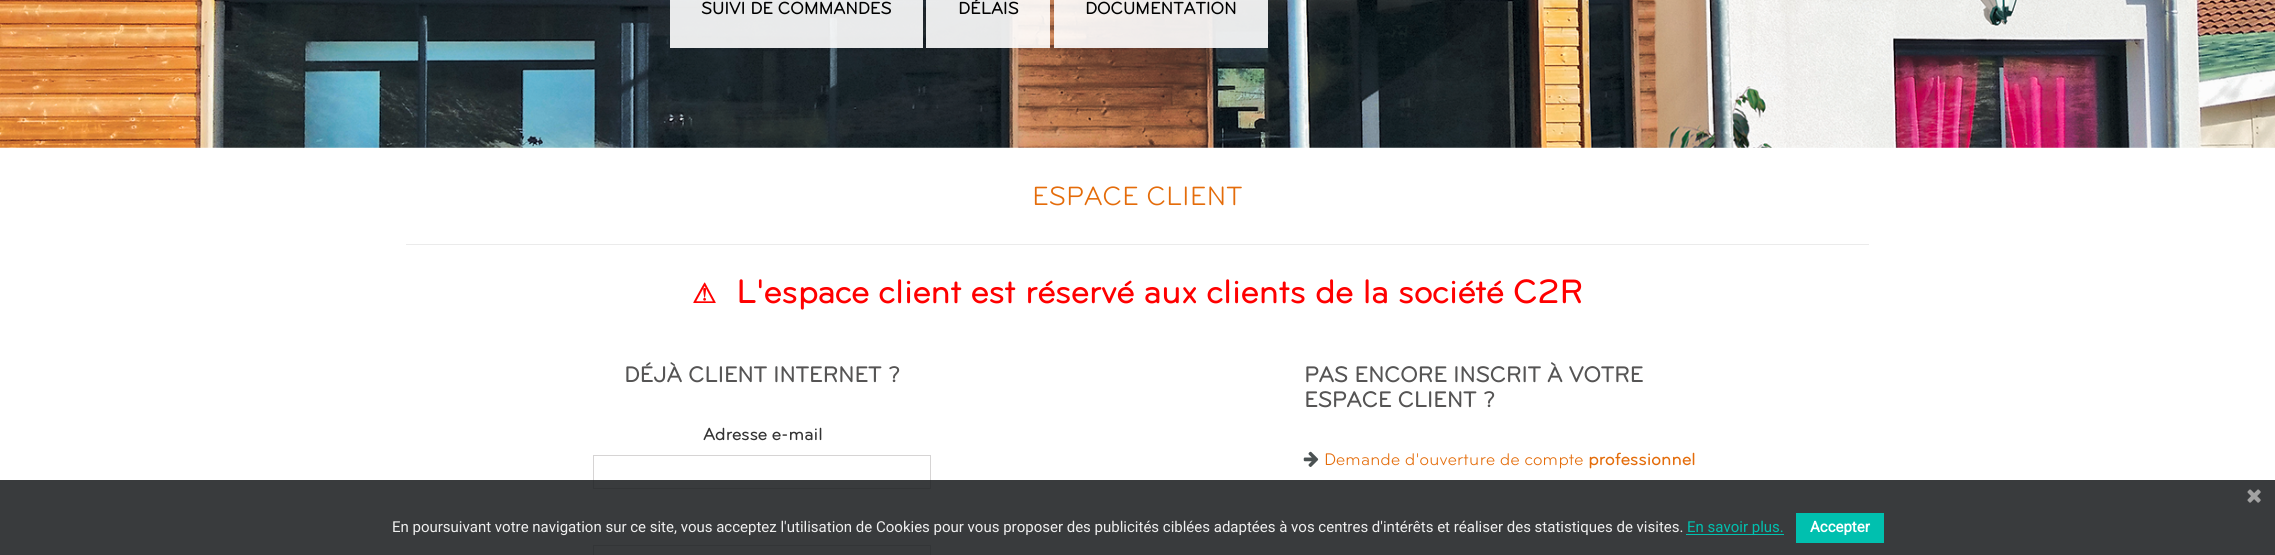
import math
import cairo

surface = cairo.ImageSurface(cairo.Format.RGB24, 2275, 555)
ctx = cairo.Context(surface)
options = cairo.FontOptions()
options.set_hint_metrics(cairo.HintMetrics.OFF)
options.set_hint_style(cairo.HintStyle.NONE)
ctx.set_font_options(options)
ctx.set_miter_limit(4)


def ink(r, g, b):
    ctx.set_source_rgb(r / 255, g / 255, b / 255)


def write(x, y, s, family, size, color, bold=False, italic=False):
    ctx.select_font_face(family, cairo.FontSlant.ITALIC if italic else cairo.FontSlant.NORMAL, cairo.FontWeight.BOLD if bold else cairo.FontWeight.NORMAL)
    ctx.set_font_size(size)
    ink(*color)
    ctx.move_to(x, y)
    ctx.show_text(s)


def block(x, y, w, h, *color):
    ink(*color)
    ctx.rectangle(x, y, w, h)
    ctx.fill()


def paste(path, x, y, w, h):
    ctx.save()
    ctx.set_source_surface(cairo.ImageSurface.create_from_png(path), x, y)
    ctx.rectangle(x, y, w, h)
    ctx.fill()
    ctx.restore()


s1 = dict(family="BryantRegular", size=17.5, color=(0, 0, 0), bold=True)
s2 = dict(family="BryantRegular", size=27.5, color=(228, 108, 10))
s3 = dict(family="DejaVu Sans", size=27, color=(255, 0, 0), bold=True)
s4 = dict(family="BryantRegular", size=33.75, color=(255, 0, 0), bold=True)
s5 = dict(family="BryantRegular", size=22.5, color=(85, 84, 84), bold=True)
s6 = dict(family="BryantRegular", size=17.5, color=(51, 51, 51), bold=True)
s7 = dict(family="BryantRegular", size=17.5, color=(228, 108, 10))
s8 = dict(family="BryantRegular", size=17.5, color=(228, 108, 10), bold=True)
s9 = dict(family="Roboto", size=15, color=(239, 239, 239))
s10 = dict(family="Roboto", size=15, color=(0, 192, 175))
s11 = dict(family="Roboto", size=15, color=(255, 255, 255), bold=True)

ink(255, 255, 255)
ctx.paint()
paste("pic1.png", 0, 0, 2275, 148)
ctx.set_source_rgba(1, 1, 1, 0.9)
ctx.rectangle(670, 0, 253, 48)
ctx.fill()
write(701, 14, "SUIVI DE COMMANDES", **s1)
ctx.set_source_rgba(1, 1, 1, 0.9)
ctx.rectangle(926, 0, 124, 48)
ctx.fill()
write(958, 14, "DÉLAIS", **s1)
ctx.set_source_rgba(1, 1, 1, 0.9)
ctx.rectangle(1054, 0, 214, 48)
ctx.fill()
write(1085, 14, "DOCUMENTATION", **s1)
block(406, 244, 1463, 1, 235, 235, 235)
write(1032, 205, "ESPACE CLIENT", **s2)
write(692, 303, "⚠", **s3)
write(736, 303, "L'espace client est réservé aux clients de la société C2R", **s4)
write(624, 382, "DÉJÀ CLIENT INTERNET ?", **s5)
write(703, 440, "Adresse e-mail", **s6)
ctx.rectangle(593.5, 455.5, 337, 33)
ink(214, 212, 212)
ctx.set_line_width(1)
ctx.stroke()
ctx.rectangle(593.5, 545.5, 337, 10)
ctx.stroke()
write(1304, 382, "PAS ENCORE INSCRIT À VOTRE", **s5)
write(1304, 407, "ESPACE CLIENT ?", **s5)
paste("pic2.png", 1303, 451, 16, 16)
write(1324, 465, "Demande d'ouverture de compte", **s7)
write(1588, 465, "professionnel", **s8)
ctx.set_source_rgba(0.09, 0.098, 0.11, 0.85)
ctx.rectangle(0, 480, 2275, 75)
ctx.fill()
paste("pic3.png", 2247, 489, 14, 14)
write(392, 532, "En poursuivant votre navigation sur ce site, vous acceptez l'utilisation de Cookies pour vous proposer des publicités ciblées adaptées à vos centres d'intérêts et réaliser des statistiques de visites.", **s9)
block(1686, 534, 98, 1, 0, 192, 175)
write(1687, 532, "En savoir plus.", **s10)
block(1796, 513, 88, 30, 0, 192, 175)
write(1810, 532, "Accepter", **s11)
surface.write_to_png("screenshot.png")
